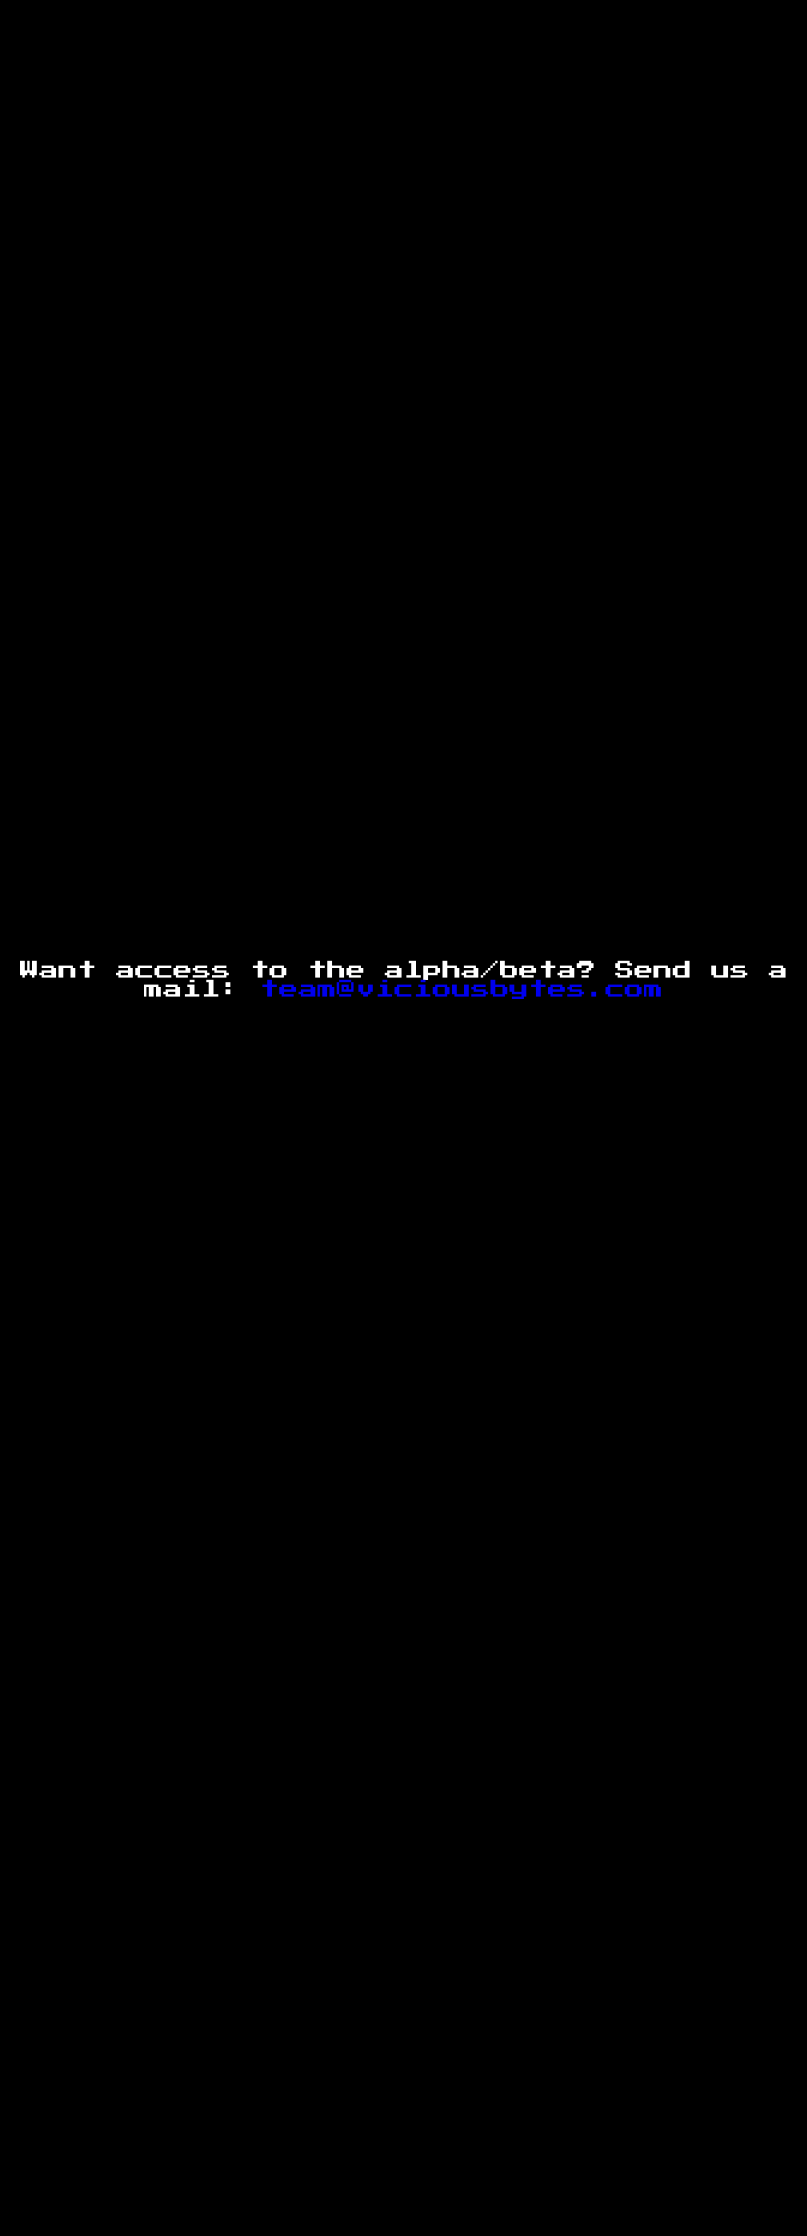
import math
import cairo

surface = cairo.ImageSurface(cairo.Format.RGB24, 807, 2236)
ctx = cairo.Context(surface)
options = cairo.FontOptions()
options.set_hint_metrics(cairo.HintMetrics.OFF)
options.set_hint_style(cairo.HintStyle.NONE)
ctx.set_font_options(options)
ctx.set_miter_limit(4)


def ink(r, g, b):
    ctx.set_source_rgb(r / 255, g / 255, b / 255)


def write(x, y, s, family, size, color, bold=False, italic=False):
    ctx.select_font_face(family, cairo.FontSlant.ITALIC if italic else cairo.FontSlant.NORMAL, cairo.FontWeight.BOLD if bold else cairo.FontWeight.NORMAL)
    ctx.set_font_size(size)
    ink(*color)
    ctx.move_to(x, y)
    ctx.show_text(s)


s1 = dict(family="Press Start 2P", size=19.2, color=(255, 255, 255))
s2 = dict(family="Press Start 2P", size=19.2, color=(0, 0, 238))

ink(0, 0, 0)
ctx.paint()
write(20, 980, "Want access to the alpha/beta? Send us a", **s1)
write(144, 999, "mail:", **s1)
write(260, 999, "team@viciousbytes.com", **s2)
surface.write_to_png("screenshot.png")
